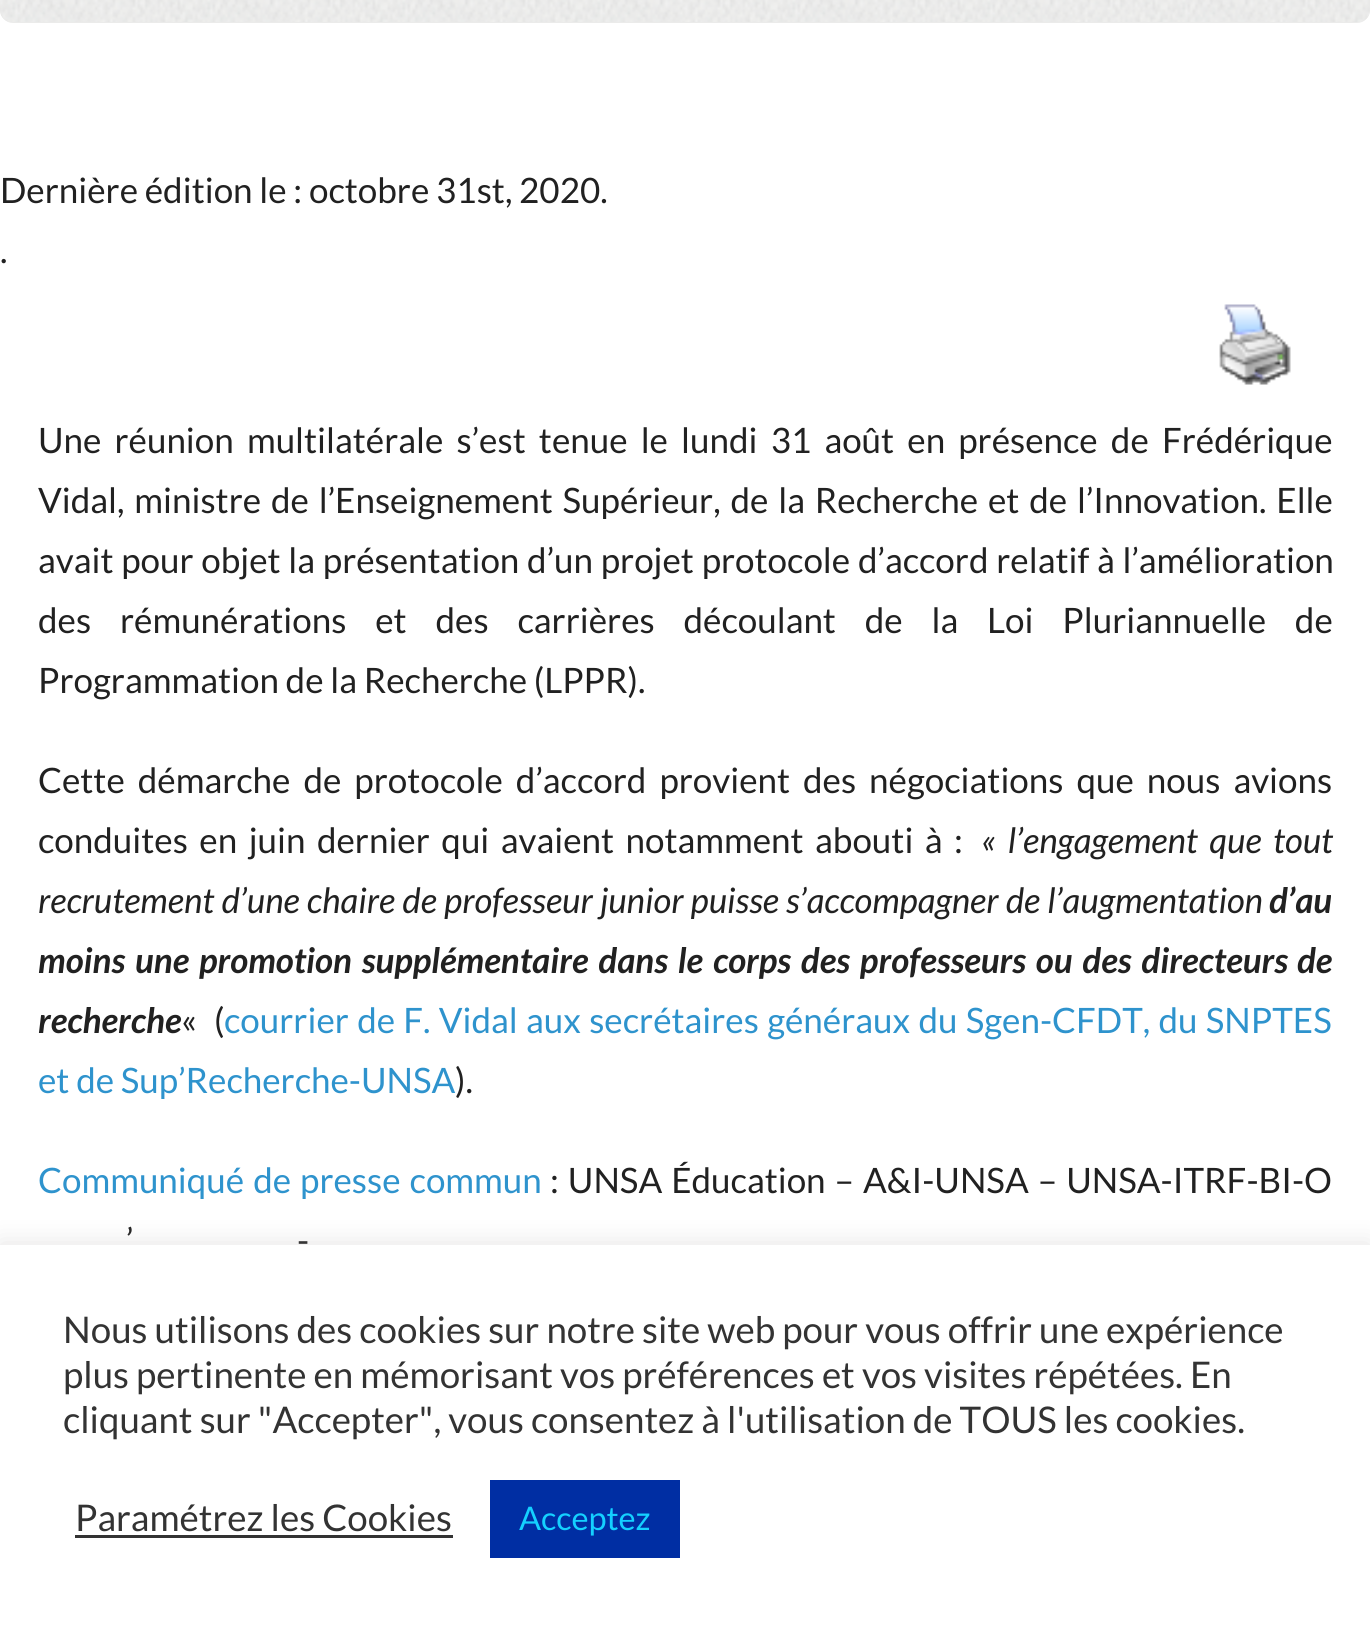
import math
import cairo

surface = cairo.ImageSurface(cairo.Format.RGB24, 1370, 1632)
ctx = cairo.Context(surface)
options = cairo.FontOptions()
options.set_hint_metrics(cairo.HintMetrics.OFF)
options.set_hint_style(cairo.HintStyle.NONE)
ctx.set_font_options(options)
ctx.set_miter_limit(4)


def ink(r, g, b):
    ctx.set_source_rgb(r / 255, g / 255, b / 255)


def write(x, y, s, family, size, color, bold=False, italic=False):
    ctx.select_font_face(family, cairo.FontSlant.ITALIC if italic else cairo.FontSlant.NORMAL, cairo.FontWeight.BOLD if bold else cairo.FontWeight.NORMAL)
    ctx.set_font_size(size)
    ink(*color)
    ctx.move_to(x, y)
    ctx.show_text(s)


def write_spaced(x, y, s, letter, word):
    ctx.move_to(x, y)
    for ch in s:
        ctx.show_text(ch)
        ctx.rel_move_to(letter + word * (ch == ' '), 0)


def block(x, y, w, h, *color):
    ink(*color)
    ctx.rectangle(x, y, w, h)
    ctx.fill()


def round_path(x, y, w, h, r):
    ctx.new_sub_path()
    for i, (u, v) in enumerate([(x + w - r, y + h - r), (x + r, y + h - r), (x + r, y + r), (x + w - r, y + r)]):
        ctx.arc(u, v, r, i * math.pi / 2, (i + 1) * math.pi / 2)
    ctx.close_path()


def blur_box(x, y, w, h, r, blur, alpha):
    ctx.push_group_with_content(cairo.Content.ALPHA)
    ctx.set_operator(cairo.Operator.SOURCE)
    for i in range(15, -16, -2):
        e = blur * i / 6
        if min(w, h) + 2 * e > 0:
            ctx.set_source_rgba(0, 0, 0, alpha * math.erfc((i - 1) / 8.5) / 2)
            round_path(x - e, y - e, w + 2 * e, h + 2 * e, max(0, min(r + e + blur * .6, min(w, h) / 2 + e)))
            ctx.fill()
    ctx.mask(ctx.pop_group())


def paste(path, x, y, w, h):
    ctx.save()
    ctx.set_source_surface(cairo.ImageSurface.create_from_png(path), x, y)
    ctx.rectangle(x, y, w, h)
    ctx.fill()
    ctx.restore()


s1 = dict(family="Lato", size=35, color=(33, 33, 33))
s2 = dict(family="Lato", size=35, color=(33, 33, 33), bold=True, italic=True)
s3 = dict(family="Lato", size=35, color=(46, 147, 205))
s4 = dict(family="Lato", size=36.7, color=(51, 51, 51))
s5 = dict(family="Lato", size=32.5, color=(20, 208, 255))

ink(255, 255, 255)
ctx.paint()
ink(235, 235, 234)
round_path(0, -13, 1370, 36, 13)
ctx.fill()
paste("pic1.png", 0, 0, 1370, 22)
write(0, 203, "Dernière édition le : octobre 31st, 2020.", **s1)
write(0, 263, ".", **s1)
paste("pic2.png", 1219, 304, 72, 81)
write_spaced(38, 453, "Une réunion multilatérale s’est tenue le lundi 31 août en présence de Frédérique", 0, 6.4)
write_spaced(38, 513, "Vidal, ministre de l’Enseignement Supérieur, de la Recherche et de l’Innovation. Elle", 0, 3.1)
write_spaced(38, 573, "avait pour objet la présentation d’un projet protocole d’accord relatif à l’amélioration", 0, 1)
write_spaced(38, 633, "des rémunérations et des carrières découlant de la Loi Pluriannuelle de", 0, 22.1)
write(38, 693, "Programmation de la Recherche (LPPR).", **s1)
write_spaced(38, 793, "Cette démarche de protocole d’accord provient des négociations que nous avions", 0, 6.25)
write_spaced(38, 853, "conduites en juin dernier qui avaient notamment abouti à :", 0, 4.75)
ctx.select_font_face("Lato", cairo.FontSlant.ITALIC)
write_spaced(981, 853, "« l’engagement que tout", 0, 4.75)
write_spaced(38, 913, "recrutement d’une chaire de professeur junior puisse s’accompagner de l’augmentation", 0, 0.4)
write(1269, 913, "d’au", **s2)
write_spaced(38, 973, "moins une promotion supplémentaire dans le corps des professeurs ou des directeurs", 0, 3.1)
write(1297, 973, "de", **s2)
write(38, 1033, "recherche", **s2)
write(181, 1033, "«", **s1)
write(214, 1033, "(", **s1)
ink(46, 147, 205)
write_spaced(224, 1033, "courrier de F. Vidal aux secrétaires généraux du Sgen-CFDT, du SNPTES", 0, 1.5)
write(38, 1093, "et de Sup’Recherche-UNSA", **s3)
write(455, 1093, ").", **s1)
ink(46, 147, 205)
write_spaced(38, 1193, "Communiqué de presse commun", 0, 2.25)
ink(33, 33, 33)
write_spaced(550, 1193, ": UNSA Éducation – A&I-UNSA – UNSA-ITRF-BI-O", 0, 2.25)
write(126, 1253, "’", **s1)
write(297, 1253, "-", **s1)
ink(172, 171, 171)
blur_box(0, 1243, 1370, 387, 0, 12.5, 0.3)
block(0, 1245, 1370, 387, 255, 255, 255)
write(63, 1343, "Nous utilisons des cookies sur notre site web pour vous offrir une expérience", **s4)
write(63, 1388, "plus pertinente en mémorisant vos préférences et vos visites répétées. En", **s4)
write(63, 1433, "cliquant sur \"Accepter\", vous consentez à l'utilisation de TOUS les cookies.", **s4)
write(75, 1531, "Paramétrez les Cookies", **s4)
block(75, 1535, 378, 3, 51, 51, 51)
block(490, 1480, 190, 78, 0, 46, 163)
write(519, 1530, "Acceptez", **s5)
surface.write_to_png("screenshot.png")
